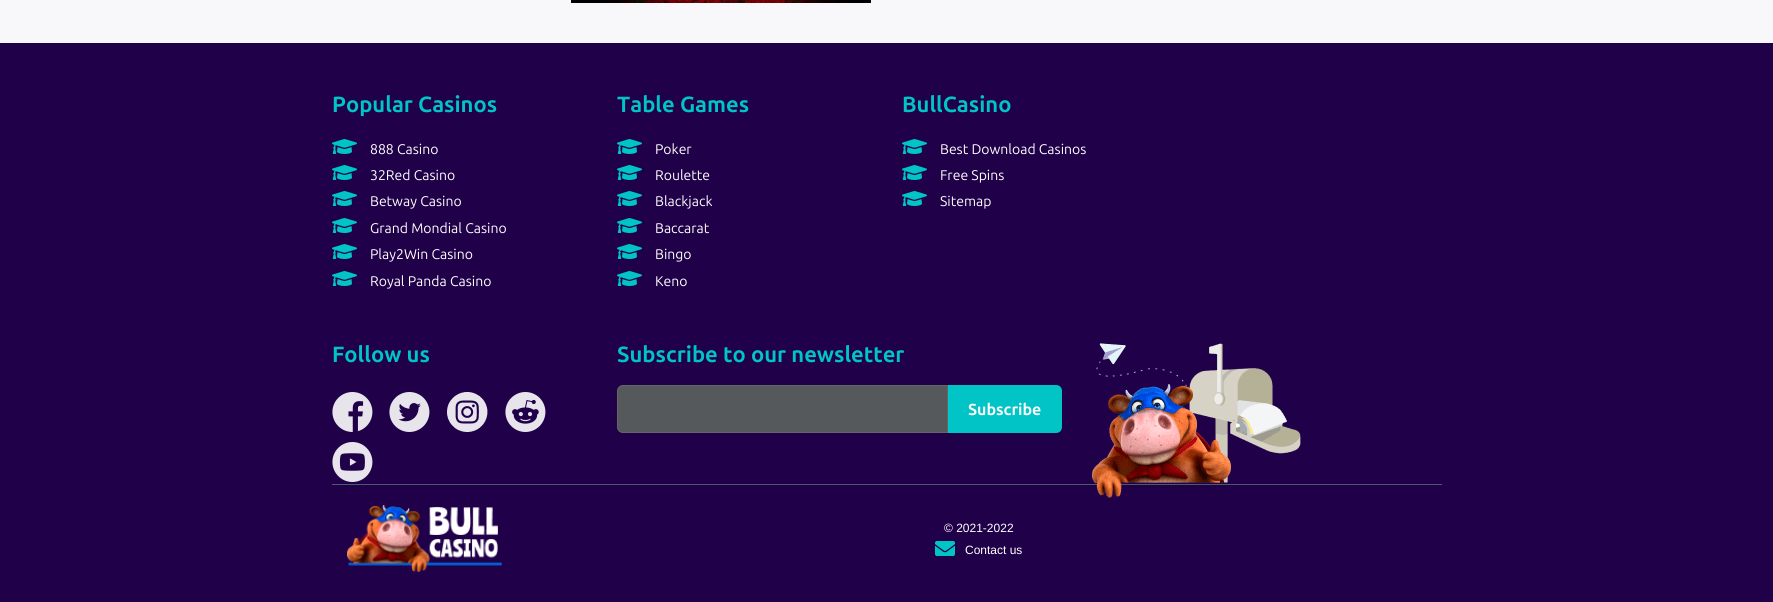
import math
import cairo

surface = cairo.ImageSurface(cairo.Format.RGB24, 1773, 602)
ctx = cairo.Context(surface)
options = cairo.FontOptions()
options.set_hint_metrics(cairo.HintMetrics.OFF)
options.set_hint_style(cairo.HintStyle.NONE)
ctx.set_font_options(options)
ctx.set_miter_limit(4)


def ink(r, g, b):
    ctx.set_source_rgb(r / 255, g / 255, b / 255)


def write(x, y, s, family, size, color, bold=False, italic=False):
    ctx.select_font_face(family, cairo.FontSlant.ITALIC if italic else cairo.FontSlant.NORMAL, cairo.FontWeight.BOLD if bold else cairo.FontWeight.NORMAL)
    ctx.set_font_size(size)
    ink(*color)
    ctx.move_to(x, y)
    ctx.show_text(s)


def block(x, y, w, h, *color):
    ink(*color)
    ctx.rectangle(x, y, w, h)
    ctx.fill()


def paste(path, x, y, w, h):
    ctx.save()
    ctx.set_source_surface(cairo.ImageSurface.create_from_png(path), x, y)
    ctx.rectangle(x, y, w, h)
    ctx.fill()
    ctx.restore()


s1 = dict(family="Ubuntu", size=22, color=(0, 196, 198), bold=True)
s2 = dict(family="Ubuntu", size=14, color=(255, 255, 255))
s3 = dict(family="Ubuntu", size=16, color=(255, 255, 255), bold=True)
s4 = dict(family="Liberation Sans", size=12, color=(255, 255, 255))

ink(248, 248, 250)
ctx.paint()
paste("pic1.png", 571, 0, 300, 3)
block(0, 43, 1773, 559, 32, 0, 73)
write(332, 112, "Popular Casinos", **s1)
paste("pic2.png", 332, 139, 25, 15)
write(370, 154, "888 Casino", **s2)
paste("pic2.png", 332, 165, 25, 15)
write(370, 180, "32Red Casino", **s2)
paste("pic2.png", 332, 191, 25, 15)
write(370, 206, "Betway Casino", **s2)
paste("pic2.png", 332, 218, 25, 15)
write(370, 233, "Grand Mondial Casino", **s2)
paste("pic2.png", 332, 244, 25, 15)
write(370, 259, "Play2Win Casino", **s2)
paste("pic2.png", 332, 271, 25, 15)
write(370, 286, "Royal Panda Casino", **s2)
write(617, 112, "Table Games", **s1)
paste("pic2.png", 617, 139, 25, 15)
write(655, 154, "Poker", **s2)
paste("pic2.png", 617, 165, 25, 15)
write(655, 180, "Roulette", **s2)
paste("pic2.png", 617, 191, 25, 15)
write(655, 206, "Blackjack", **s2)
paste("pic2.png", 617, 218, 25, 15)
write(655, 233, "Baccarat", **s2)
paste("pic2.png", 617, 244, 25, 15)
write(655, 259, "Bingo", **s2)
paste("pic2.png", 617, 271, 25, 15)
write(655, 286, "Keno", **s2)
write(902, 112, "BullCasino", **s1)
paste("pic2.png", 902, 139, 25, 15)
write(940, 154, "Best Download Casinos", **s2)
paste("pic2.png", 902, 165, 25, 15)
write(940, 180, "Free Spins", **s2)
paste("pic2.png", 902, 191, 25, 15)
write(940, 206, "Sitemap", **s2)
block(332, 484, 1110, 1, 74, 91, 104)
write(332, 362, "Follow us", **s1)
paste("pic3.png", 332, 392, 41, 40)
paste("pic4.png", 389, 392, 41, 40)
paste("pic5.png", 447, 392, 41, 40)
paste("pic6.png", 505, 392, 41, 40)
paste("pic7.png", 332, 442, 41, 40)
write(617, 362, "Subscribe to our newsletter", **s1)
ink(86, 89, 92)
ctx.new_path()
ctx.move_to(623, 385.5)
ctx.line_to(947.5, 385.5)
ctx.line_to(947.5, 432.5)
ctx.line_to(623, 432.5)
ctx.curve_to(620, 432.5, 617.5, 430, 617.5, 427)
ctx.line_to(617.5, 391)
ctx.curve_to(617.5, 388, 620, 385.5, 623, 385.5)
ctx.close_path()
ctx.fill_preserve()
ink(102, 102, 102)
ctx.set_line_width(1)
ctx.stroke()
ink(0, 196, 198)
ctx.new_path()
ctx.move_to(948, 385)
ctx.line_to(1056, 385)
ctx.curve_to(1059.5, 385, 1062, 387.5, 1062, 391)
ctx.line_to(1062, 427)
ctx.curve_to(1062, 430.5, 1059.5, 433, 1056, 433)
ctx.line_to(948, 433)
ctx.close_path()
ctx.fill()
write(968, 415, "Subscribe", **s3)
paste("pic8.png", 1092, 343, 209, 155)
paste("pic9.png", 347, 505, 155, 67)
write(944, 532, "© 2021-2022", **s4)
paste("pic10.png", 935, 541, 20, 15)
write(965, 554, "Contact us", **s4)
surface.write_to_png("screenshot.png")
